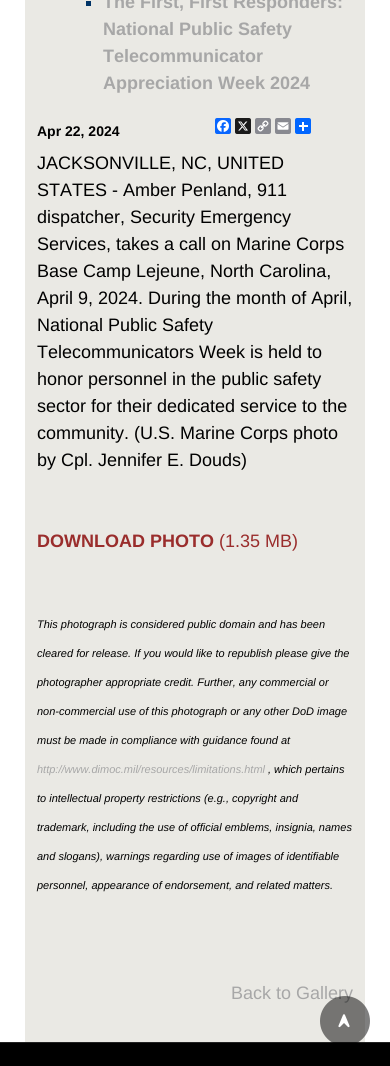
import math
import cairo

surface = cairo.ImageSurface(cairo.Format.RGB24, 390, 1066)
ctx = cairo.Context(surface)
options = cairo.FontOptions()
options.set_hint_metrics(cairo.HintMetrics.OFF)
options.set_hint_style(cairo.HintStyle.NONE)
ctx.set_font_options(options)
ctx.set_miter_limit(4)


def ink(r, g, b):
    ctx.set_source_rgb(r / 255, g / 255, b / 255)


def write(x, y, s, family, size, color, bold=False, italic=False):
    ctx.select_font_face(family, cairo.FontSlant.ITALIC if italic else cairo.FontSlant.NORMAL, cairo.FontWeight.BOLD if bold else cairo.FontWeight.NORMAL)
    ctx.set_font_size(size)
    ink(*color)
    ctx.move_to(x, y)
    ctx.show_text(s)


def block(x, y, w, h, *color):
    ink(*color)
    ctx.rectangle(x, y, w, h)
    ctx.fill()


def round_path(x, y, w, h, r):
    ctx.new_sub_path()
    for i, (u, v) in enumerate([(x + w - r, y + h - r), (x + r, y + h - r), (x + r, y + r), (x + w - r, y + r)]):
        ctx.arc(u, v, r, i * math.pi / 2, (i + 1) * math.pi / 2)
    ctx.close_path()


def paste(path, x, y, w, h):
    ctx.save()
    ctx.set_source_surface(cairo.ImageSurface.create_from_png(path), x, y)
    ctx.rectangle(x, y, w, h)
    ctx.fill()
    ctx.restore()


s1 = dict(family="Liberation Sans", size=18, color=(167, 167, 167), bold=True)
s2 = dict(family="Liberation Sans", size=14, color=(0, 0, 0), bold=True)
s3 = dict(family="Liberation Sans", size=18, color=(0, 0, 0))
s4 = dict(family="Liberation Sans", size=18, color=(154, 45, 44), bold=True)
s5 = dict(family="Liberation Sans", size=18, color=(154, 45, 44))
s6 = dict(family="Liberation Sans", size=11, color=(0, 0, 0), italic=True)
s7 = dict(family="Liberation Sans", size=11, color=(167, 167, 167), italic=True)
s8 = dict(family="Liberation Sans", size=18, color=(167, 167, 167))

ink(255, 255, 255)
ctx.paint()
block(25, 0, 340, 1042, 234, 233, 228)
block(86, 1, 5, 5, 0, 51, 102)
write(103, 8, "The First, First Responders:", **s1)
write(103, 35, "National Public Safety", **s1)
write(103, 62, "Telecommunicator", **s1)
write(103, 89, "Appreciation Week 2024", **s1)
write(37, 136, "Apr 22, 2024", **s2)
ink(8, 102, 255)
round_path(215, 118, 16, 16, 2)
ctx.fill()
paste("pic1.png", 217, 120, 12, 12)
ink(26, 26, 26)
round_path(235, 118, 16, 16, 2)
ctx.fill()
paste("pic2.png", 238, 121, 10, 10)
ink(136, 137, 144)
round_path(255, 118, 16, 16, 2)
ctx.fill()
paste("pic3.png", 257, 120, 12, 12)
round_path(275, 118, 16, 16, 2)
ctx.fill()
paste("pic4.png", 277, 122, 12, 8)
ink(1, 102, 255)
round_path(295, 118, 16, 16, 2)
ctx.fill()
block(302, 122, 2, 9, 255, 255, 255)
block(299, 125, 9, 2, 255, 255, 255)
write(37, 169, "JACKSONVILLE, NC, UNITED", **s3)
write(37, 196, "STATES - Amber Penland, 911", **s3)
write(37, 223, "dispatcher, Security Emergency", **s3)
write(37, 250, "Services, takes a call on Marine Corps", **s3)
write(37, 277, "Base Camp Lejeune, North Carolina,", **s3)
write(37, 304, "April 9, 2024. During the month of April,", **s3)
write(37, 331, "National Public Safety", **s3)
write(37, 358, "Telecommunicators Week is held to", **s3)
write(37, 385, "honor personnel in the public safety", **s3)
write(37, 412, "sector for their dedicated service to the", **s3)
write(37, 439, "community. (U.S. Marine Corps photo", **s3)
write(37, 466, "by Cpl. Jennifer E. Douds)", **s3)
write(37, 547, "DOWNLOAD PHOTO", **s4)
write(219, 547, "(1.35 MB)", **s5)
write(37, 628, "This photograph is considered public domain and has been", **s6)
write(37, 657, "cleared for release. If you would like to republish please give the", **s6)
write(37, 686, "photographer appropriate credit. Further, any commercial or", **s6)
write(37, 715, "non-commercial use of this photograph or any other DoD image", **s6)
write(37, 744, "must be made in compliance with guidance found at", **s6)
write(37, 773, "http://www.dimoc.mil/resources/limitations.html", **s7)
write(268, 773, ", which pertains", **s6)
write(37, 802, "to intellectual property restrictions (e.g., copyright and", **s6)
write(37, 831, "trademark, including the use of official emblems, insignia, names", **s6)
write(37, 860, "and slogans), warnings regarding use of images of identifiable", **s6)
write(37, 889, "personnel, appearance of endorsement, and related matters.", **s6)
write(231, 999, "Back to Gallery", **s8)
block(0, 1043, 390, 23, 0, 0, 0)
block(0, 1042, 390, 1, 35, 35, 35)
ctx.set_source_rgba(0, 0, 0, 0.5)
ctx.new_path()
ctx.arc(345, 1021, 25, 0, 2 * math.pi)
ctx.fill()
paste("pic5.png", 338, 1014, 12, 14)
surface.write_to_png("screenshot.png")
